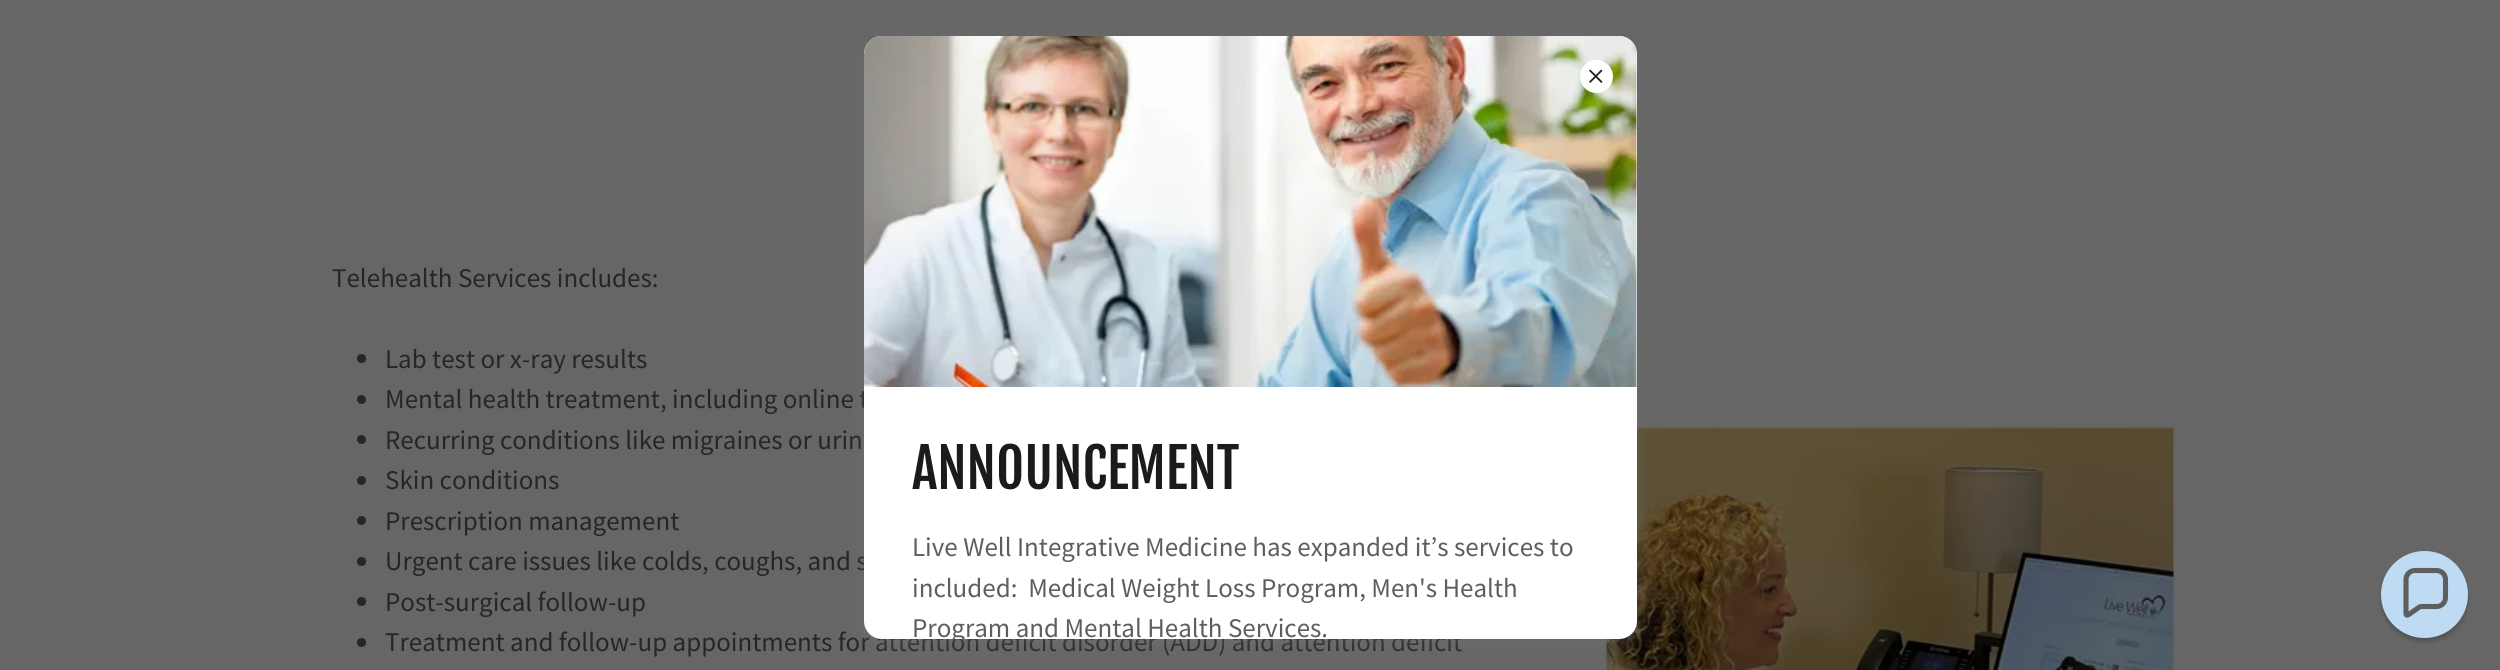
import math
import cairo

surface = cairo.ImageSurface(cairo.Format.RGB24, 2500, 670)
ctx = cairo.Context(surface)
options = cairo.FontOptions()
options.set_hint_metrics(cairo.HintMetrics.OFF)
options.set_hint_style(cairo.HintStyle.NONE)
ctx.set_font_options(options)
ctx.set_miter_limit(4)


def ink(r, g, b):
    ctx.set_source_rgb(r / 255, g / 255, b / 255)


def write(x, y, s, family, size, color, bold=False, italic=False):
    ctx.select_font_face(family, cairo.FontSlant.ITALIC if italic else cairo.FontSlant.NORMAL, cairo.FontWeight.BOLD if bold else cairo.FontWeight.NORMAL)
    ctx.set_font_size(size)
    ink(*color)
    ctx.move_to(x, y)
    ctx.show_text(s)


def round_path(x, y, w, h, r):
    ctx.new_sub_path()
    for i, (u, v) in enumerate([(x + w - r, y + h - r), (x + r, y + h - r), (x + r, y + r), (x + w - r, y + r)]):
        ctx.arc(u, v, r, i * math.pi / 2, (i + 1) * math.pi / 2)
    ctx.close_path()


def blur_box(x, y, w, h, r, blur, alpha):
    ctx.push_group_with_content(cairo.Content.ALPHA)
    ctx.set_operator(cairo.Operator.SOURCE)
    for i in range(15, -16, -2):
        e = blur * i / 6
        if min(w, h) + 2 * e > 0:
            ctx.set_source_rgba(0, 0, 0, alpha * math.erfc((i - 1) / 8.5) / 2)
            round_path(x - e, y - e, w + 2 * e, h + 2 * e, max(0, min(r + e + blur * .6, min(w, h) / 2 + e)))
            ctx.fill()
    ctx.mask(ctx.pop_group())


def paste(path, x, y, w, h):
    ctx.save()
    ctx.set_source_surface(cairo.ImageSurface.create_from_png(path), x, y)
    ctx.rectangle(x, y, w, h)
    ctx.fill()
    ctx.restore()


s1 = dict(family="Source Sans Pro", size=27, color=(38, 38, 38))
s2 = dict(family="Fjalla One", size=54, color=(27, 27, 27))
s3 = dict(family="Source Sans Pro", size=27, color=(94, 94, 94))

ink(102, 102, 102)
ctx.paint()
write(332, 287, "Telehealth Services includes:", **s1)
ctx.new_path()
ctx.arc(361.5, 358.5, 4.5, 0, 2 * math.pi)
ctx.fill()
write(385, 368, "Lab test or x-ray results", **s1)
ctx.new_path()
ctx.arc(361.5, 399.5, 4.5, 0, 2 * math.pi)
ctx.fill()
write(385, 408, "Mental health treatment, including online t", **s1)
ctx.new_path()
ctx.arc(361.5, 439.5, 4.5, 0, 2 * math.pi)
ctx.fill()
write(385, 449, "Recurring conditions like migraines or urin", **s1)
ctx.new_path()
ctx.arc(361.5, 480.5, 4.5, 0, 2 * math.pi)
ctx.fill()
write(385, 489, "Skin conditions", **s1)
ctx.new_path()
ctx.arc(361.5, 520.5, 4.5, 0, 2 * math.pi)
ctx.fill()
write(385, 530, "Prescription management", **s1)
ctx.new_path()
ctx.arc(361.5, 561.5, 4.5, 0, 2 * math.pi)
ctx.fill()
write(385, 570, "Urgent care issues like colds, coughs, and s", **s1)
ctx.new_path()
ctx.arc(361.5, 601.5, 4.5, 0, 2 * math.pi)
ctx.fill()
write(385, 611, "Post-surgical follow-up", **s1)
ctx.new_path()
ctx.arc(361.5, 642.5, 4.5, 0, 2 * math.pi)
ctx.fill()
write(385, 651, "Treatment and follow-up appointments for attention deficit disorder (ADD) and attention deficit", **s1)
paste("pic1.png", 1606, 426, 568, 244)
ink(117, 117, 117)
blur_box(864, 42, 773, 603, 18, 9, 0.4)
ink(255, 255, 255)
round_path(864, 36, 773, 603, 18)
ctx.fill()
paste("pic3.png", 864, 36, 773, 351)
ctx.arc(1596.5, 76.5, 16.5, 0, 2 * math.pi)
ctx.fill()
paste("pic2.png", 1589, 69, 14, 14)
write(912, 489, "ANNOUNCEMENT", **s2)
write(912, 556, "Live Well Integrative Medicine has expanded it’s services to", **s3)
write(912, 597, "included:  Medical Weight Loss Program, Men's Health", **s3)
ctx.save()
round_path(864, 36, 773, 603, 18)
ctx.clip()
write(912, 637, "Program and Mental Health Services.", **s3)
ctx.restore()
ink(5, 5, 5)
blur_box(2381, 555, 87, 87, 43.5, 2, 0.2)
ink(191, 219, 244)
ctx.arc(2424.5, 594.5, 43.5, 0, 2 * math.pi)
ctx.fill()
ctx.new_path()
ctx.move_to(2436.5, 570.5)
ctx.line_to(2415, 570.5)
ctx.curve_to(2410, 570.5, 2406, 574.5, 2406, 579.5)
ctx.line_to(2406, 614)
ctx.curve_to(2406, 615, 2407, 615.5, 2408, 615)
ctx.line_to(2418, 608)
ctx.curve_to(2419, 607, 2420.5, 606.5, 2422, 606.5)
ctx.line_to(2436.5, 606.5)
ctx.curve_to(2441.5, 606.5, 2445.5, 602.5, 2445.5, 597.5)
ctx.line_to(2445.5, 579.5)
ctx.curve_to(2445.5, 574.5, 2441.5, 570.5, 2436.5, 570.5)
ctx.close_path()
ink(94, 94, 94)
ctx.set_line_width(5.1)
ctx.stroke()
surface.write_to_png("screenshot.png")
